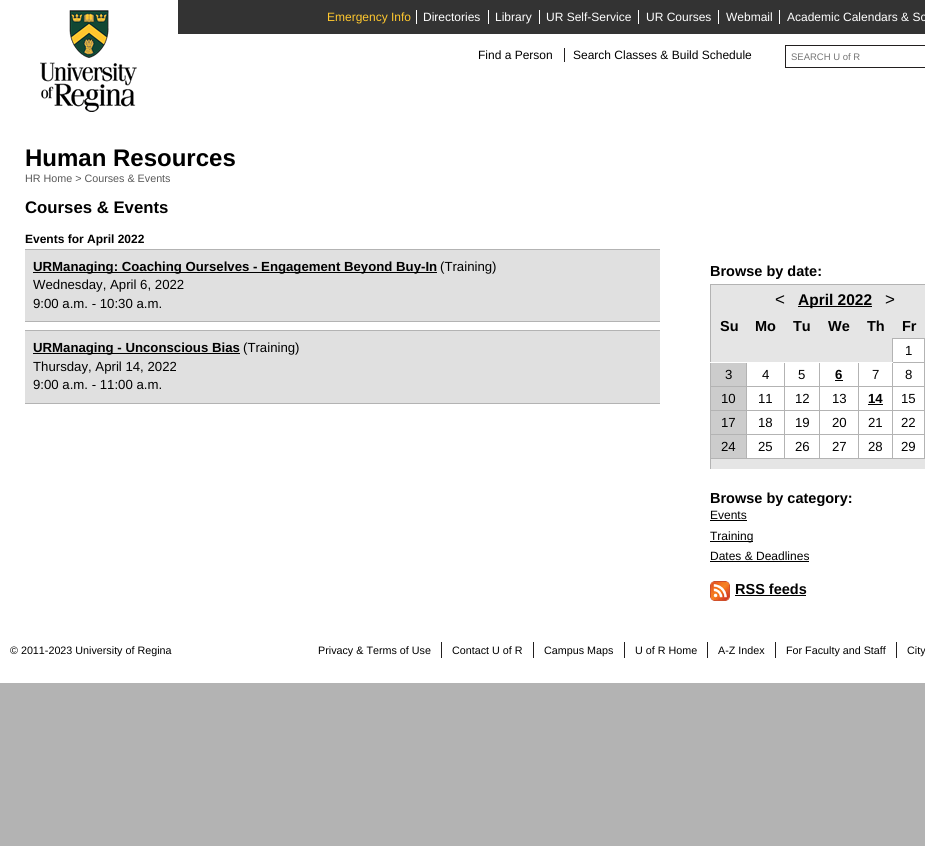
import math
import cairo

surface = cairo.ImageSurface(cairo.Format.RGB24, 925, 846)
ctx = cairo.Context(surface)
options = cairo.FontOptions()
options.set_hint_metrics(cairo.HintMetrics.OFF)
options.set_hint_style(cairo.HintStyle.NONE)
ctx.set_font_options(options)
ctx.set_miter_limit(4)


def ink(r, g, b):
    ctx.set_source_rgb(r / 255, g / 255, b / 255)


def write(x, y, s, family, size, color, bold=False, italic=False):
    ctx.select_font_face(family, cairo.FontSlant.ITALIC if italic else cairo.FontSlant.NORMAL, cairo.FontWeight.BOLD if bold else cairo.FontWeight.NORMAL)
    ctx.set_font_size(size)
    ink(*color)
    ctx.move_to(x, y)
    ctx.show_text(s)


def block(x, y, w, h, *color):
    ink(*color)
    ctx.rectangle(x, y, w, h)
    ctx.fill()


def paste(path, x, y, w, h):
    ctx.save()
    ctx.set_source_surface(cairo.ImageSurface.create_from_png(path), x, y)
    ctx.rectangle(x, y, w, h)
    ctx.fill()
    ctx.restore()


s1 = dict(family="Liberation Sans", size=12, color=(255, 200, 46))
s2 = dict(family="Liberation Sans", size=12, color=(255, 255, 255))
s3 = dict(family="Liberation Sans", size=12, color=(0, 0, 0))
s4 = dict(family="Liberation Sans", size=9.5, color=(117, 117, 117))
s5 = dict(family="Liberation Sans", size=24, color=(0, 0, 0), bold=True)
s6 = dict(family="Liberation Sans", size=10.75, color=(89, 89, 89))
s7 = dict(family="Liberation Sans", size=16.75, color=(0, 0, 0), bold=True)
s8 = dict(family="Liberation Sans", size=12, color=(0, 0, 0), bold=True)
s9 = dict(family="Liberation Sans", size=13.2, color=(0, 0, 0), bold=True)
s10 = dict(family="Liberation Sans", size=13.2, color=(0, 0, 0))
s11 = dict(family="Liberation Sans", size=14.5, color=(0, 0, 0), bold=True)
s12 = dict(family="Liberation Sans", size=17, color=(0, 0, 0))
s13 = dict(family="Liberation Sans", size=15.5, color=(0, 0, 0), bold=True)
s14 = dict(family="Liberation Sans", size=10.75, color=(0, 0, 0))

ink(179, 179, 179)
ctx.paint()
block(0, 0, 925, 683, 255, 255, 255)
paste("pic1.png", 40, 10, 97, 102)
block(178, 0, 747, 34, 51, 51, 51)
write(327, 21, "Emergency Info", **s1)
block(416, 10, 1, 14, 255, 255, 255)
write(423, 21, "Directories", **s2)
block(488, 10, 1, 14, 255, 255, 255)
write(495, 21, "Library", **s2)
block(539, 10, 1, 14, 255, 255, 255)
write(546, 21, "UR Self-Service", **s2)
block(638, 10, 1, 14, 255, 255, 255)
write(646, 21, "UR Courses", **s2)
block(718, 10, 1, 14, 255, 255, 255)
write(726, 21, "Webmail", **s2)
block(779, 10, 1, 14, 255, 255, 255)
write(787, 21, "Academic Calendars & Sc", **s2)
write(478, 59, "Find a Person", **s3)
write(573, 59, "Search Classes & Build Schedule", **s3)
block(564, 48, 1, 14, 34, 31, 31)
ctx.rectangle(785.5, 45.5, 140, 22)
ctx.set_line_width(1)
ctx.stroke()
write(791, 60, "SEARCH U of R", **s4)
write(25, 166, "Human Resources", **s5)
write(25, 182, "HR Home > Courses & Events", **s6)
write(25, 213, "Courses & Events", **s7)
write(25, 243, "Events for April 2022", **s8)
block(25, 250, 635, 71, 224, 224, 224)
block(25, 249, 635, 1, 179, 179, 179)
block(25, 321, 635, 1, 179, 179, 179)
block(33, 272, 404, 1, 0, 0, 0)
write(33, 271, "URManaging: Coaching Ourselves - Engagement Beyond Buy-In", **s9)
write(440, 271, "(Training)", **s10)
write(33, 289, "Wednesday, April 6, 2022", **s10)
write(33, 308, "9:00 a.m. - 10:30 a.m.", **s10)
block(25, 331, 635, 72, 224, 224, 224)
block(25, 330, 635, 1, 179, 179, 179)
block(25, 403, 635, 1, 179, 179, 179)
block(33, 353, 207, 1, 0, 0, 0)
write(33, 352, "URManaging - Unconscious Bias", **s9)
write(243, 352, "(Training)", **s10)
write(33, 371, "Thursday, April 14, 2022", **s10)
write(33, 389, "9:00 a.m. - 11:00 a.m.", **s10)
write(710, 276, "Browse by date:", **s11)
block(711, 285, 214, 184, 229, 229, 229)
block(710, 284, 215, 1, 179, 179, 179)
block(710, 284, 1, 186, 179, 179, 179)
write(775, 305, "<", **s12)
block(798, 306, 74, 1, 0, 0, 0)
write(798, 305, "April 2022", **s13)
write(885, 305, ">", **s12)
write(720, 331, "Su", **s11)
write(755, 331, "Mo", **s11)
write(793, 331, "Tu", **s11)
write(828, 331, "We", **s11)
write(867, 331, "Th", **s11)
write(902, 331, "Fr", **s11)
block(893, 339, 31, 23, 255, 255, 255)
block(924, 434, 1, 25, 179, 179, 179)
block(892, 434, 33, 1, 179, 179, 179)
block(924, 410, 1, 25, 179, 179, 179)
block(892, 410, 33, 1, 179, 179, 179)
block(924, 386, 1, 25, 179, 179, 179)
block(892, 386, 33, 1, 179, 179, 179)
block(924, 362, 1, 25, 179, 179, 179)
block(892, 362, 33, 1, 179, 179, 179)
block(924, 338, 1, 25, 179, 179, 179)
block(892, 338, 33, 1, 179, 179, 179)
block(892, 458, 33, 1, 179, 179, 179)
block(892, 434, 1, 25, 179, 179, 179)
block(858, 434, 35, 1, 179, 179, 179)
block(892, 410, 1, 25, 179, 179, 179)
block(858, 410, 35, 1, 179, 179, 179)
block(892, 386, 1, 25, 179, 179, 179)
block(858, 386, 35, 1, 179, 179, 179)
block(892, 362, 1, 25, 179, 179, 179)
block(892, 338, 1, 25, 179, 179, 179)
write(905, 355, "1", **s10)
block(858, 458, 35, 1, 179, 179, 179)
block(858, 434, 1, 25, 179, 179, 179)
block(819, 434, 40, 1, 179, 179, 179)
block(858, 410, 1, 25, 179, 179, 179)
block(819, 410, 40, 1, 179, 179, 179)
block(858, 386, 1, 25, 179, 179, 179)
block(819, 386, 40, 1, 179, 179, 179)
block(819, 458, 40, 1, 179, 179, 179)
block(819, 434, 1, 25, 179, 179, 179)
block(784, 434, 36, 1, 179, 179, 179)
block(819, 410, 1, 25, 179, 179, 179)
block(784, 410, 36, 1, 179, 179, 179)
block(819, 386, 1, 25, 179, 179, 179)
block(784, 386, 36, 1, 179, 179, 179)
block(784, 458, 36, 1, 179, 179, 179)
block(784, 434, 1, 25, 179, 179, 179)
block(746, 434, 39, 1, 179, 179, 179)
block(784, 410, 1, 25, 179, 179, 179)
block(746, 410, 39, 1, 179, 179, 179)
block(784, 386, 1, 25, 179, 179, 179)
block(746, 386, 39, 1, 179, 179, 179)
block(746, 458, 39, 1, 179, 179, 179)
block(746, 434, 1, 25, 179, 179, 179)
block(710, 434, 37, 1, 179, 179, 179)
block(746, 410, 1, 25, 179, 179, 179)
block(710, 410, 37, 1, 179, 179, 179)
block(746, 386, 1, 25, 179, 179, 179)
block(710, 386, 37, 1, 179, 179, 179)
block(746, 362, 1, 25, 179, 179, 179)
block(784, 362, 1, 25, 179, 179, 179)
block(819, 362, 1, 25, 179, 179, 179)
block(858, 362, 1, 25, 179, 179, 179)
block(710, 362, 183, 1, 255, 255, 255)
block(711, 363, 35, 23, 204, 204, 204)
write(725, 379, "3", **s10)
block(747, 363, 37, 23, 255, 255, 255)
write(762, 379, "4", **s10)
block(785, 363, 34, 23, 255, 255, 255)
write(798, 379, "5", **s10)
block(820, 363, 38, 23, 255, 255, 255)
write(835, 379, "6", **s9)
block(835, 380, 8, 1, 0, 0, 0)
block(859, 363, 33, 23, 255, 255, 255)
write(872, 379, "7", **s10)
block(893, 363, 31, 23, 255, 255, 255)
write(905, 379, "8", **s10)
block(711, 387, 35, 23, 204, 204, 204)
write(721, 403, "10", **s10)
block(747, 387, 37, 23, 255, 255, 255)
write(758, 403, "11", **s10)
block(785, 387, 34, 23, 255, 255, 255)
write(795, 403, "12", **s10)
block(820, 387, 38, 23, 255, 255, 255)
write(832, 403, "13", **s10)
block(859, 387, 33, 23, 255, 255, 255)
write(868, 403, "14", **s9)
block(868, 404, 15, 1, 0, 0, 0)
block(893, 387, 31, 23, 255, 255, 255)
write(901, 403, "15", **s10)
block(711, 411, 35, 23, 204, 204, 204)
write(721, 427, "17", **s10)
block(747, 411, 37, 23, 255, 255, 255)
write(758, 427, "18", **s10)
block(785, 411, 34, 23, 255, 255, 255)
write(795, 427, "19", **s10)
block(820, 411, 38, 23, 255, 255, 255)
write(832, 427, "20", **s10)
block(859, 411, 33, 23, 255, 255, 255)
write(868, 427, "21", **s10)
block(893, 411, 31, 23, 255, 255, 255)
write(901, 427, "22", **s10)
block(711, 435, 35, 23, 204, 204, 204)
block(710, 458, 37, 1, 179, 179, 179)
write(721, 451, "24", **s10)
block(747, 435, 37, 23, 255, 255, 255)
write(758, 451, "25", **s10)
block(785, 435, 34, 23, 255, 255, 255)
write(795, 451, "26", **s10)
block(820, 435, 38, 23, 255, 255, 255)
write(832, 451, "27", **s10)
block(859, 435, 33, 23, 255, 255, 255)
write(868, 451, "28", **s10)
block(893, 435, 31, 23, 255, 255, 255)
write(901, 451, "29", **s10)
block(710, 469, 1, 1, 255, 255, 255)
write(710, 503, "Browse by category:", **s11)
write(710, 519, "Events", **s3)
block(710, 520, 37, 1, 0, 0, 0)
block(710, 541, 43, 1, 0, 0, 0)
write(710, 540, "Training", **s3)
write(710, 560, "Dates & Deadlines", **s3)
block(710, 561, 99, 1, 0, 0, 0)
paste("pic2.png", 710, 581, 20, 20)
write(735, 594, "RSS feeds", **s11)
block(735, 595, 71, 1, 0, 0, 0)
write(10, 654, "© 2011-2023 University of Regina", **s14)
block(441, 642, 1, 16, 34, 31, 31)
write(318, 654, "Privacy & Terms of Use", **s14)
block(533, 642, 1, 16, 34, 31, 31)
write(452, 654, "Contact U of R", **s14)
block(624, 642, 1, 16, 34, 31, 31)
write(544, 654, "Campus Maps", **s14)
block(707, 642, 1, 16, 34, 31, 31)
write(635, 654, "U of R Home", **s14)
block(775, 642, 1, 16, 34, 31, 31)
write(718, 654, "A-Z Index", **s14)
block(896, 642, 1, 16, 34, 31, 31)
write(786, 654, "For Faculty and Staff", **s14)
write(907, 654, "City", **s14)
surface.write_to_png("screenshot.png")
